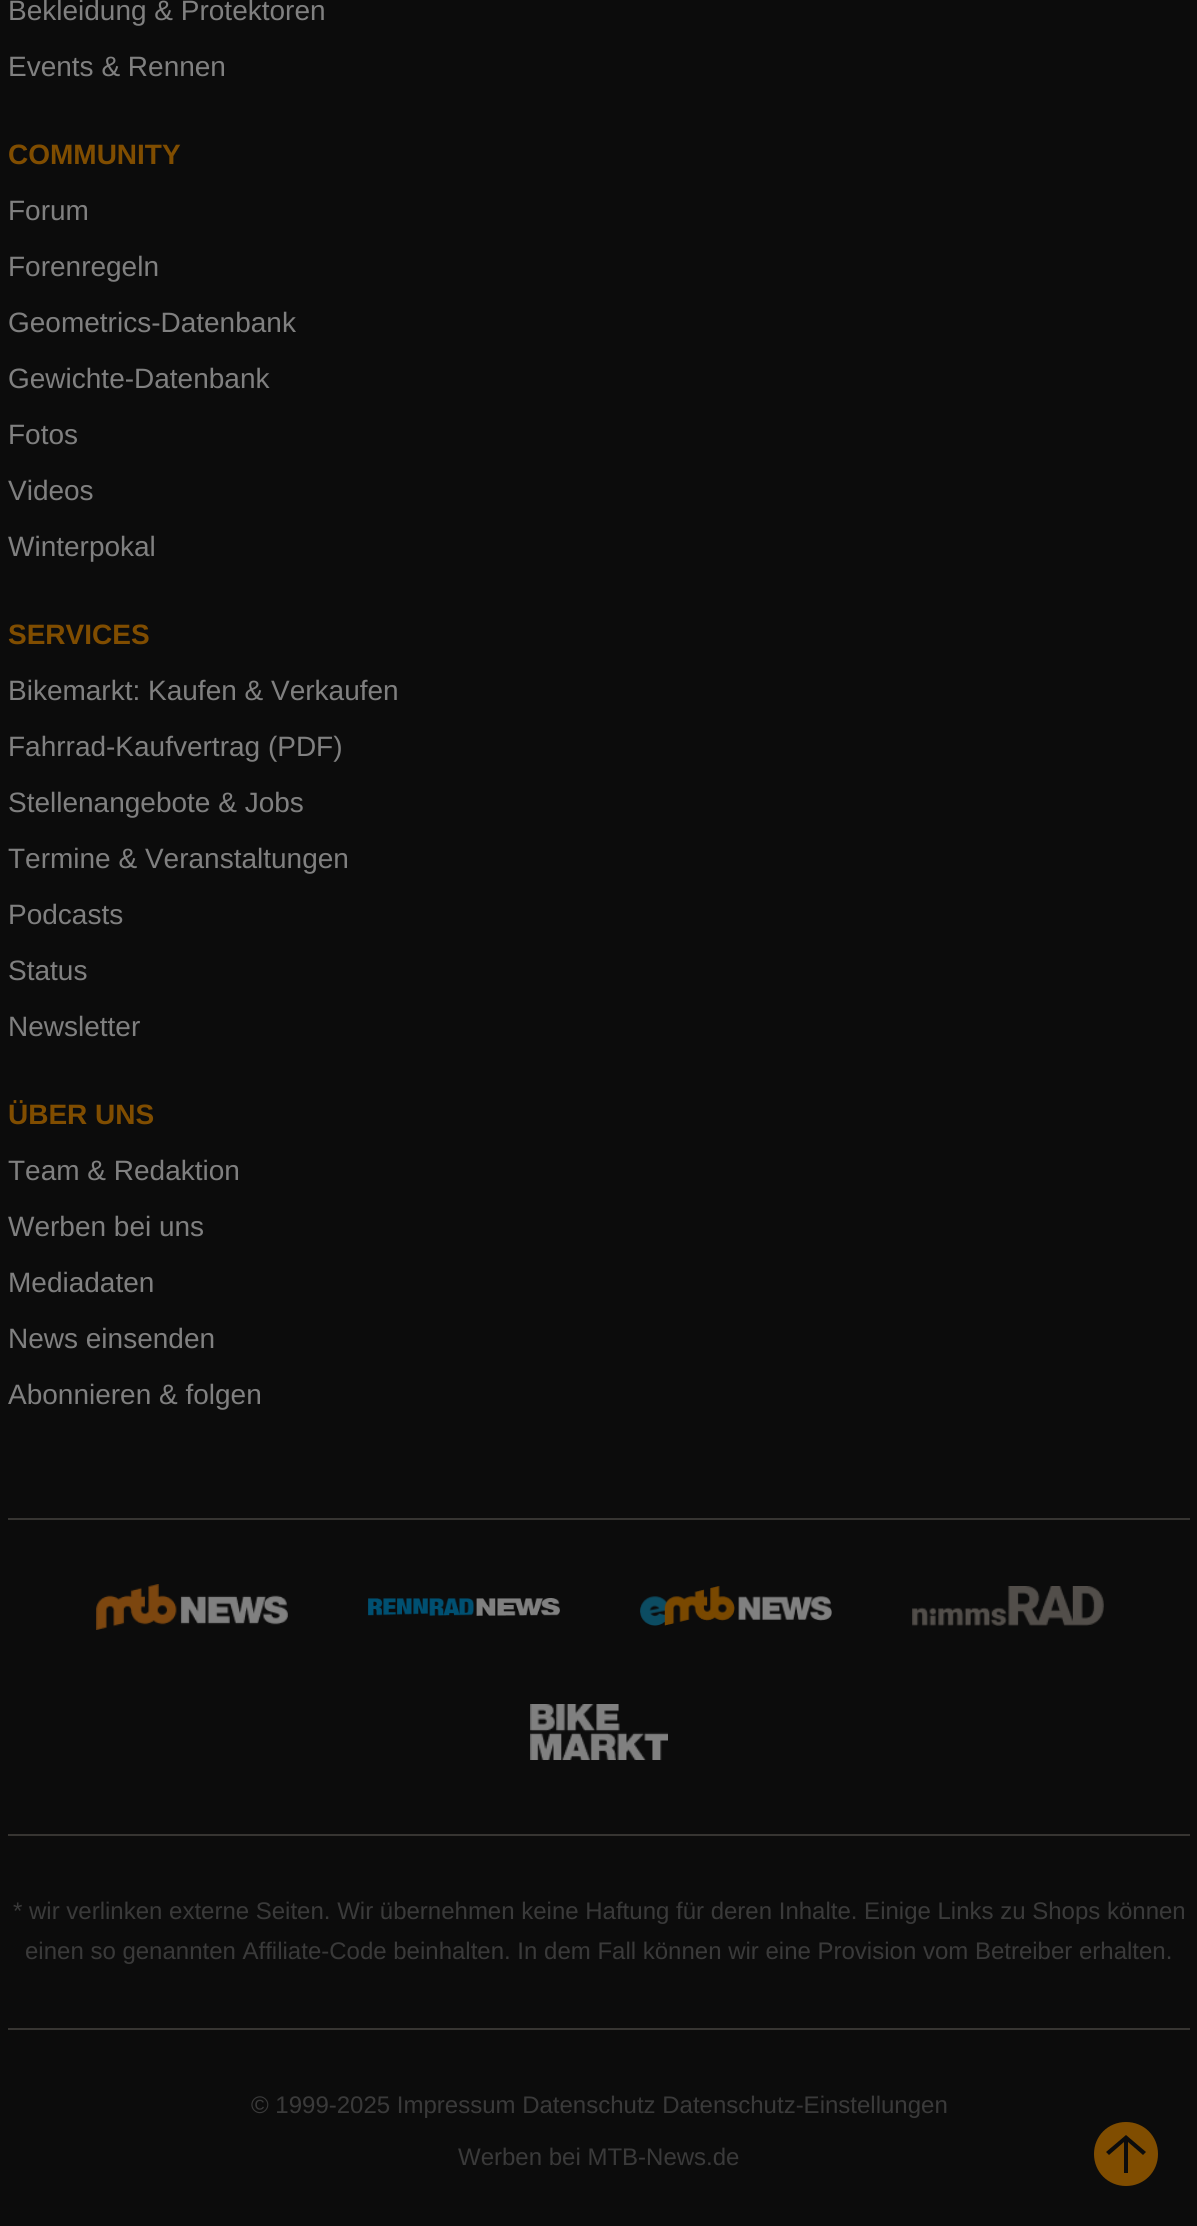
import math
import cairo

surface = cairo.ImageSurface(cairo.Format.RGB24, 1197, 2226)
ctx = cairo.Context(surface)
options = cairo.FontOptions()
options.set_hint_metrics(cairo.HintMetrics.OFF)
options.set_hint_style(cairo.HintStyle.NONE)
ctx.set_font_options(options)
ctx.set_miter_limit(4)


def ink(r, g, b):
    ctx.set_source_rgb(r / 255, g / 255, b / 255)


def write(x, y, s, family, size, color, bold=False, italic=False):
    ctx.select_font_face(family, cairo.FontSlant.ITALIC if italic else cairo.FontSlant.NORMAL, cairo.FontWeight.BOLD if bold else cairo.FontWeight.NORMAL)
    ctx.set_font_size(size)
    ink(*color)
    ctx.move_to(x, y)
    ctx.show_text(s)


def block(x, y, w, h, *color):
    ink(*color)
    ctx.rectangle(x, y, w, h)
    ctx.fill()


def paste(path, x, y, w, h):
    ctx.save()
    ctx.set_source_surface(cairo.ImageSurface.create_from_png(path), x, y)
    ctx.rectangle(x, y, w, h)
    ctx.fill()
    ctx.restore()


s1 = dict(family="Liberation Sans", size=28, color=(128, 128, 128))
s2 = dict(family="Liberation Sans", size=28, color=(128, 77, 0), bold=True)
s3 = dict(family="Liberation Sans", size=24, color=(58, 58, 58))

ink(12, 12, 12)
ctx.paint()
block(8, 1518, 1182, 2, 55, 53, 50)
write(8, 20, "Bekleidung & Protektoren", **s1)
write(8, 76, "Events & Rennen", **s1)
write(8, 164, "COMMUNITY", **s2)
write(8, 220, "Forum", **s1)
write(8, 276, "Forenregeln", **s1)
write(8, 332, "Geometrics-Datenbank", **s1)
write(8, 388, "Gewichte-Datenbank", **s1)
write(8, 444, "Fotos", **s1)
write(8, 500, "Videos", **s1)
write(8, 556, "Winterpokal", **s1)
write(8, 644, "SERVICES", **s2)
write(8, 700, "Bikemarkt: Kaufen & Verkaufen", **s1)
write(8, 756, "Fahrrad-Kaufvertrag (PDF)", **s1)
write(8, 812, "Stellenangebote & Jobs", **s1)
write(8, 868, "Termine & Veranstaltungen", **s1)
write(8, 924, "Podcasts", **s1)
write(8, 980, "Status", **s1)
write(8, 1036, "Newsletter", **s1)
write(8, 1124, "ÜBER UNS", **s2)
write(8, 1180, "Team & Redaktion", **s1)
write(8, 1236, "Werben bei uns", **s1)
write(8, 1292, "Mediadaten", **s1)
write(8, 1348, "News einsenden", **s1)
write(8, 1404, "Abonnieren & folgen", **s1)
block(8, 1834, 1182, 2, 55, 53, 50)
paste("pic1.png", 96, 1584, 192, 46)
paste("pic2.png", 368, 1598, 192, 18)
paste("pic3.png", 640, 1586, 192, 40)
paste("pic4.png", 912, 1586, 192, 40)
paste("pic5.png", 530, 1704, 138, 56)
block(8, 2028, 1182, 2, 55, 53, 50)
write(13, 1919, "* wir verlinken externe Seiten. Wir übernehmen keine Haftung für deren Inhalte. Einige Links zu Shops können", **s3)
write(25, 1959, "einen so genannten Affiliate-Code beinhalten. In dem Fall können wir eine Provision vom Betreiber erhalten.", **s3)
write(251, 2113, "© 1999-2025 Impressum Datenschutz Datenschutz-Einstellungen", **s3)
write(458, 2165, "Werben bei MTB-News.de", **s3)
ink(128, 77, 0)
ctx.new_path()
ctx.move_to(1126, 2122)
ctx.curve_to(1108, 2122, 1094, 2136, 1094, 2154)
ctx.curve_to(1094, 2172, 1108, 2186, 1126, 2186)
ctx.curve_to(1144, 2186, 1158, 2172, 1158, 2154)
ctx.curve_to(1158, 2136, 1144, 2122, 1126, 2122)
ctx.close_path()
ctx.move_to(1143, 2155)
ctx.line_to(1128, 2142)
ctx.line_to(1128, 2173)
ctx.line_to(1124, 2173)
ctx.line_to(1124, 2142)
ctx.line_to(1109, 2155)
ctx.line_to(1106, 2152)
ctx.line_to(1126, 2135)
ctx.line_to(1146, 2152)
ctx.close_path()
ctx.fill()
surface.write_to_png("screenshot.png")
